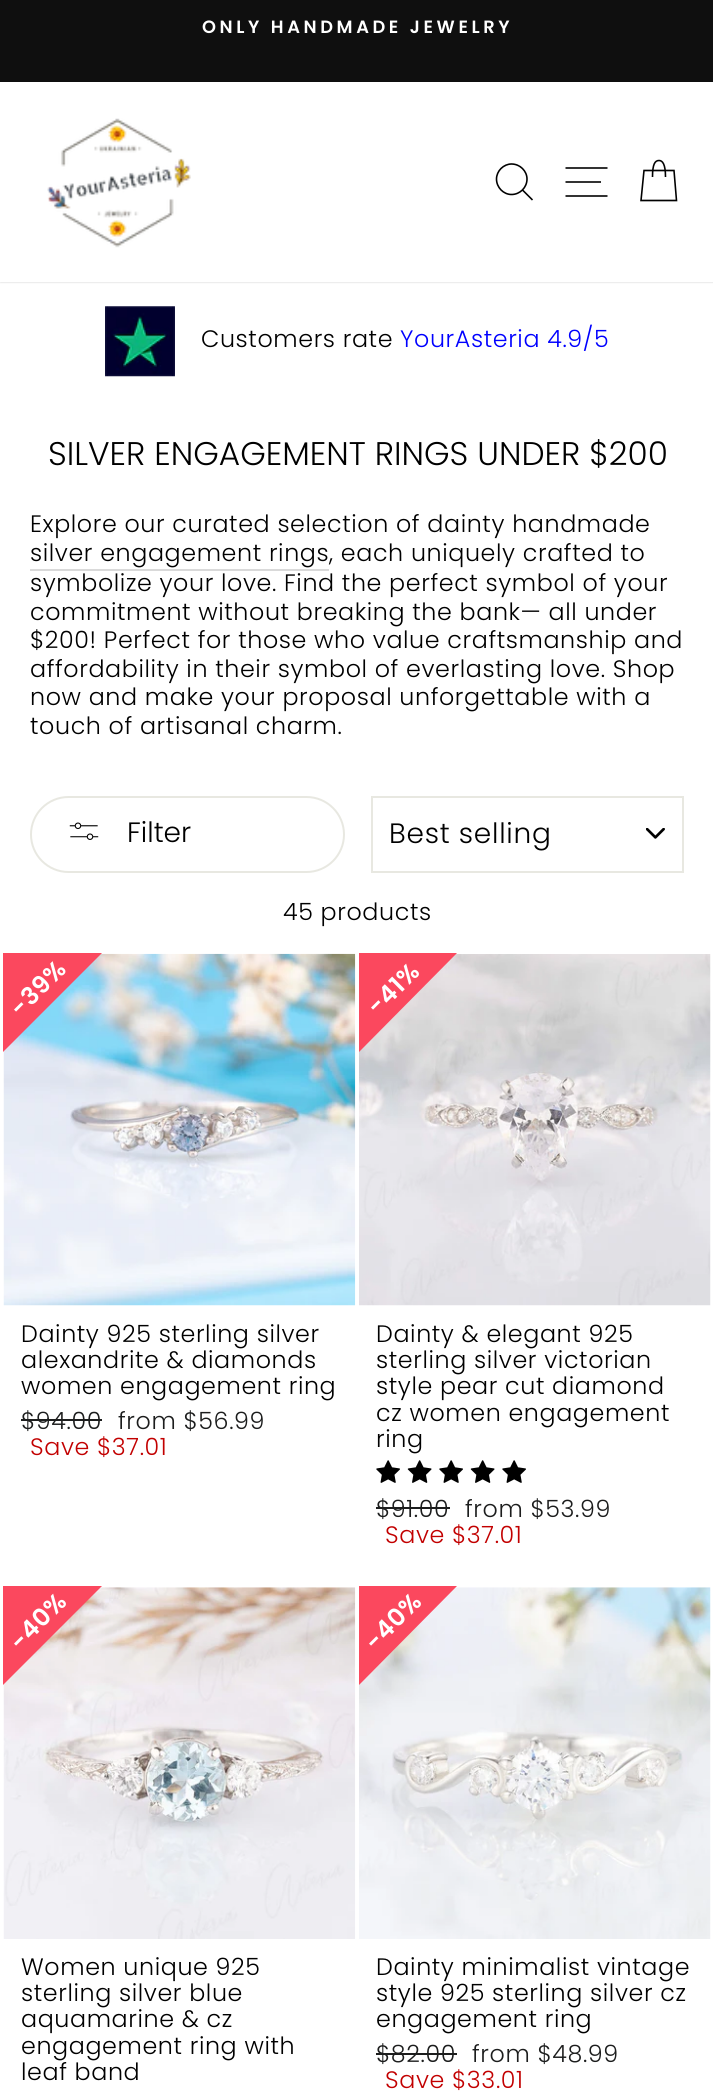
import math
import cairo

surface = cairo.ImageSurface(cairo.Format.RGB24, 713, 2091)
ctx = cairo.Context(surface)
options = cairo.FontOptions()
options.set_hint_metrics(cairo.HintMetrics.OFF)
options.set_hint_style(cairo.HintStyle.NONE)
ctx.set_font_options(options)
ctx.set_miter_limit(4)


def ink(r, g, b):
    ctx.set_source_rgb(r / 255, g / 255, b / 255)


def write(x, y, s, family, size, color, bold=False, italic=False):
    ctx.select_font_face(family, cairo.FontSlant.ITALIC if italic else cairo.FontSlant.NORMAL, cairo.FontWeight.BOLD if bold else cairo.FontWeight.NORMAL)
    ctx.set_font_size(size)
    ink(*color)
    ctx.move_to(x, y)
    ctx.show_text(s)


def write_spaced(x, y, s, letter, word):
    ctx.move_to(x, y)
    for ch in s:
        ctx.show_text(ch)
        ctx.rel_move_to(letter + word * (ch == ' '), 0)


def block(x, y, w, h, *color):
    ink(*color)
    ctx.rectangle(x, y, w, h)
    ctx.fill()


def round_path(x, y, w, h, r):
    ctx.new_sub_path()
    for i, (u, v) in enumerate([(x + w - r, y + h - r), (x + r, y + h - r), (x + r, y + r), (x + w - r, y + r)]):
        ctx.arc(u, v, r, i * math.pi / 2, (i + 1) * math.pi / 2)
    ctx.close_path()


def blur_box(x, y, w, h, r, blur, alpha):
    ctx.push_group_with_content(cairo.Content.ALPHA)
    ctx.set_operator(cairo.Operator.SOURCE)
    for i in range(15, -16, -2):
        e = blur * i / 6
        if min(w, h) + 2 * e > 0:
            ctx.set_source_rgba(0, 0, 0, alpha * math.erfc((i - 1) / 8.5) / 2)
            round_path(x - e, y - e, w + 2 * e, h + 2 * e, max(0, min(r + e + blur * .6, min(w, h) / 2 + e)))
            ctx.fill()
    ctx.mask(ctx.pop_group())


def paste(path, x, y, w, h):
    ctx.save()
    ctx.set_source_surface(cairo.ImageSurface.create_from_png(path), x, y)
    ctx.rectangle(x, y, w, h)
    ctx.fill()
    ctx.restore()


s1 = dict(family="Poppins Light", size=32.75, color=(0, 0, 0))
s2 = dict(family="Poppins Light", size=28, color=(0, 0, 0))

ink(255, 255, 255)
ctx.paint()
block(0, 0, 713, 82, 15, 15, 15)
ctx.select_font_face("Poppins SemiBold")
ctx.set_font_size(17.8)
ink(255, 255, 255)
write_spaced(202, 33, "ONLY HANDMADE JEWELRY", 3.6, 0)
ink(0, 0, 0)
blur_box(0, 82, 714, 200, 0, 1, 0.2)
block(0, 82, 713, 200, 255, 255, 255)
paste("pic1.png", 47, 118, 144, 130)
ctx.new_path()
ctx.move_to(527, 179)
ctx.curve_to(527, 187.5, 520, 194.5, 511.5, 194.5)
ctx.curve_to(503.5, 194.5, 496.5, 187.5, 496.5, 179)
ctx.curve_to(496.5, 171, 503.5, 164, 511.5, 164)
ctx.curve_to(520, 164, 527, 171, 527, 179)
ctx.close_path()
ctx.move_to(532.5, 200)
ctx.line_to(522.5, 190)
ink(0, 0, 0)
ctx.set_line_width(1.6)
ctx.stroke()
ctx.new_path()
ctx.move_to(565.5, 168)
ctx.line_to(607.5, 168)
ctx.move_to(565.5, 182)
ctx.line_to(601, 182)
ctx.move_to(565.5, 196)
ctx.line_to(607.5, 196)
ctx.stroke()
ctx.new_path()
ctx.move_to(652.5, 177)
ctx.curve_to(652.5, 164, 655, 160.5, 659, 160.5)
ctx.curve_to(662.5, 160.5, 665.5, 164, 665.5, 177)
ctx.move_to(644, 170.5)
ctx.line_to(674, 170.5)
ctx.line_to(676.5, 200.5)
ctx.line_to(641, 200.5)
ctx.close_path()
ctx.stroke()
paste("pic2.png", 105, 306, 70, 71)
ctx.select_font_face("Poppins Light")
ctx.set_font_size(23.8)
write_spaced(201, 347, "Customers rate", 0.6, 0)
ink(0, 0, 255)
write_spaced(400, 347, "YourAsteria 4.9/5", 0.6, 0)
write(48, 465, "SILVER ENGAGEMENT RINGS UNDER $200", **s1)
ctx.set_font_size(23.8)
write_spaced(30, 532, "Explore our curated selection of dainty handmade", 0.6, 0)
block(30, 569, 299, 2, 217, 217, 217)
ink(0, 0, 0)
write_spaced(30, 561, "silver engagement rings", 0.6, 0)
write_spaced(329, 561, ", each uniquely crafted to", 0.6, 0)
write_spaced(30, 591, "symbolize your love. Find the perfect symbol of your", 0.6, 0)
write_spaced(30, 620, "commitment without breaking the bank— all under", 0.6, 0)
write_spaced(30, 648, "$200! Perfect for those who value craftsmanship and", 0.6, 0)
write_spaced(30, 677, "affordability in their symbol of everlasting love. Shop", 0.6, 0)
write_spaced(30, 705, "now and make your proposal unforgettable with a", 0.6, 0)
write_spaced(30, 734, "touch of artisanal charm.", 0.6, 0)
round_path(31, 797, 313, 75, 37.5)
ink(232, 232, 225)
ctx.set_line_width(2)
ctx.stroke()
paste("pic3.png", 69, 822, 30, 18)
write(127, 842, "Filter", **s2)
paste("pic4.png", 646, 828, 19, 11)
ctx.rectangle(372, 797, 311, 75)
ink(232, 232, 225)
ctx.stroke()
ink(0, 0, 0)
write_spaced(389, 843, "Best selling", 0.75, 0)
ctx.set_font_size(23.8)
write_spaced(283, 920, "45 products", 0.6, 0)
paste("pic5.png", 3, 953, 353, 353)
ink(251, 72, 94)
ctx.new_path()
ctx.move_to(102, 953)
ctx.line_to(3, 1052)
ctx.line_to(3, 953)
ctx.close_path()
ctx.fill()
ctx.select_font_face("Poppins SemiBold")
ctx.set_font_size(24.5)
ink(255, 255, 255)
ctx.save()
ctx.translate(31, 1007)
ctx.rotate(-45 * math.pi / 180)
write_spaced(0, 0, "39%", 0.6, 0)
ctx.restore()
ctx.save()
ctx.translate(20, 1018)
ctx.rotate(-45 * math.pi / 180)
write_spaced(0, 0, "-", 0.6, 0)
ctx.restore()
ctx.select_font_face("Poppins Light")
ctx.set_font_size(23.8)
ink(0, 0, 0)
write_spaced(21, 1342, "Dainty 925 sterling silver", 0.6, 0)
write_spaced(21, 1368, "alexandrite & diamonds", 0.6, 0)
write_spaced(21, 1394, "women engagement ring", 0.6, 0)
ink(28, 29, 29)
write_spaced(21, 1429, "$94.00", 0.6, 0)
block(21, 1419, 81, 2, 28, 29, 29)
write_spaced(118, 1429, "from $56.99", 0.6, 0)
ink(194, 0, 0)
write_spaced(30, 1455, "Save $37.01", 0.6, 0)
paste("pic6.png", 359, 954, 352, 352)
ink(251, 72, 94)
ctx.new_path()
ctx.move_to(457, 953)
ctx.line_to(359, 1052)
ctx.line_to(359, 953)
ctx.close_path()
ctx.fill()
ctx.select_font_face("Poppins SemiBold")
ctx.set_font_size(24.5)
ink(255, 255, 255)
ctx.save()
ctx.translate(388, 1006)
ctx.rotate(-45 * math.pi / 180)
write_spaced(0, 0, "41%", 0.6, 0)
ctx.restore()
ctx.save()
ctx.translate(377, 1016)
ctx.rotate(-45 * math.pi / 180)
write_spaced(0, 0, "-", 0.6, 0)
ctx.restore()
ctx.select_font_face("Poppins Light")
ctx.set_font_size(23.8)
ink(0, 0, 0)
write_spaced(376, 1342, "Dainty & elegant 925", 0.6, 0)
write_spaced(376, 1368, "sterling silver victorian", 0.6, 0)
write_spaced(376, 1394, "style pear cut diamond", 0.6, 0)
write_spaced(376, 1421, "cz women engagement", 0.6, 0)
write_spaced(376, 1447, "ring", 0.6, 0)
paste("pic7.png", 376, 1460, 24, 23)
paste("pic8.png", 407, 1460, 25, 23)
paste("pic7.png", 439, 1460, 24, 23)
paste("pic8.png", 470, 1460, 25, 23)
paste("pic7.png", 502, 1460, 24, 23)
ink(28, 29, 29)
write_spaced(376, 1517, "$91.00", 0.6, 0)
block(376, 1507, 74, 2, 28, 29, 29)
write_spaced(465, 1517, "from $53.99", 0.6, 0)
ink(194, 0, 0)
write_spaced(385, 1543, "Save $37.01", 0.6, 0)
paste("pic9.png", 3, 1587, 353, 352)
ink(251, 72, 94)
ctx.new_path()
ctx.move_to(102, 1586)
ctx.line_to(3, 1685)
ctx.line_to(3, 1586)
ctx.close_path()
ctx.fill()
ctx.select_font_face("Poppins SemiBold")
ctx.set_font_size(24.5)
ink(255, 255, 255)
ctx.save()
ctx.translate(30, 1641)
ctx.rotate(-45 * math.pi / 180)
write_spaced(0, 0, "40%", 0.6, 0)
ctx.restore()
ctx.save()
ctx.translate(20, 1652)
ctx.rotate(-45 * math.pi / 180)
write_spaced(0, 0, "-", 0.6, 0)
ctx.restore()
ctx.select_font_face("Poppins Light")
ctx.set_font_size(23.8)
ink(0, 0, 0)
write_spaced(21, 1975, "Women unique 925", 0.6, 0)
write_spaced(21, 2001, "sterling silver blue", 0.6, 0)
write_spaced(21, 2027, "aquamarine & cz", 0.6, 0)
write_spaced(21, 2054, "engagement ring with", 0.6, 0)
write_spaced(21, 2080, "leaf band", 0.6, 0)
paste("pic10.png", 359, 1587, 352, 352)
ink(251, 72, 94)
ctx.new_path()
ctx.move_to(457, 1586)
ctx.line_to(359, 1685)
ctx.line_to(359, 1586)
ctx.close_path()
ctx.fill()
ctx.select_font_face("Poppins SemiBold")
ctx.set_font_size(24.5)
ink(255, 255, 255)
ctx.save()
ctx.translate(385, 1641)
ctx.rotate(-45 * math.pi / 180)
write_spaced(0, 0, "40%", 0.6, 0)
ctx.restore()
ctx.save()
ctx.translate(375, 1652)
ctx.rotate(-45 * math.pi / 180)
write_spaced(0, 0, "-", 0.6, 0)
ctx.restore()
ctx.select_font_face("Poppins Light")
ctx.set_font_size(23.8)
ink(0, 0, 0)
write_spaced(376, 1975, "Dainty minimalist vintage", 0.6, 0)
write_spaced(376, 2001, "style 925 sterling silver cz", 0.6, 0)
write_spaced(376, 2027, "engagement ring", 0.6, 0)
ink(28, 29, 29)
write_spaced(376, 2062, "$82.00", 0.6, 0)
block(376, 2053, 81, 2, 28, 29, 29)
write_spaced(472, 2062, "from $48.99", 0.6, 0)
ink(194, 0, 0)
write_spaced(385, 2088, "Save $33.01", 0.6, 0)
surface.write_to_png("screenshot.png")
